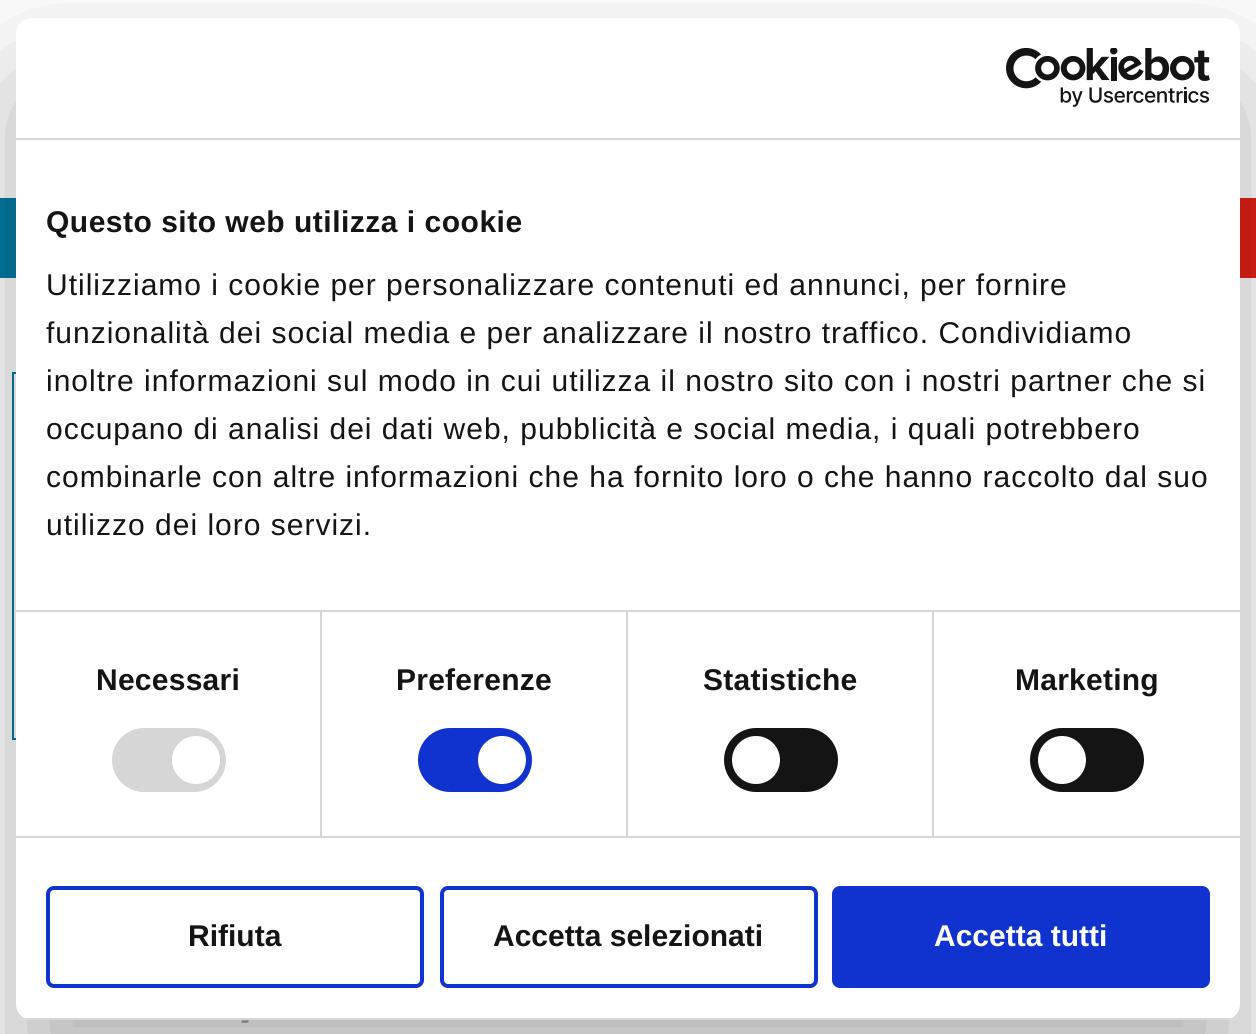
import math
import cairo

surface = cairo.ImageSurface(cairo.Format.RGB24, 1256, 1034)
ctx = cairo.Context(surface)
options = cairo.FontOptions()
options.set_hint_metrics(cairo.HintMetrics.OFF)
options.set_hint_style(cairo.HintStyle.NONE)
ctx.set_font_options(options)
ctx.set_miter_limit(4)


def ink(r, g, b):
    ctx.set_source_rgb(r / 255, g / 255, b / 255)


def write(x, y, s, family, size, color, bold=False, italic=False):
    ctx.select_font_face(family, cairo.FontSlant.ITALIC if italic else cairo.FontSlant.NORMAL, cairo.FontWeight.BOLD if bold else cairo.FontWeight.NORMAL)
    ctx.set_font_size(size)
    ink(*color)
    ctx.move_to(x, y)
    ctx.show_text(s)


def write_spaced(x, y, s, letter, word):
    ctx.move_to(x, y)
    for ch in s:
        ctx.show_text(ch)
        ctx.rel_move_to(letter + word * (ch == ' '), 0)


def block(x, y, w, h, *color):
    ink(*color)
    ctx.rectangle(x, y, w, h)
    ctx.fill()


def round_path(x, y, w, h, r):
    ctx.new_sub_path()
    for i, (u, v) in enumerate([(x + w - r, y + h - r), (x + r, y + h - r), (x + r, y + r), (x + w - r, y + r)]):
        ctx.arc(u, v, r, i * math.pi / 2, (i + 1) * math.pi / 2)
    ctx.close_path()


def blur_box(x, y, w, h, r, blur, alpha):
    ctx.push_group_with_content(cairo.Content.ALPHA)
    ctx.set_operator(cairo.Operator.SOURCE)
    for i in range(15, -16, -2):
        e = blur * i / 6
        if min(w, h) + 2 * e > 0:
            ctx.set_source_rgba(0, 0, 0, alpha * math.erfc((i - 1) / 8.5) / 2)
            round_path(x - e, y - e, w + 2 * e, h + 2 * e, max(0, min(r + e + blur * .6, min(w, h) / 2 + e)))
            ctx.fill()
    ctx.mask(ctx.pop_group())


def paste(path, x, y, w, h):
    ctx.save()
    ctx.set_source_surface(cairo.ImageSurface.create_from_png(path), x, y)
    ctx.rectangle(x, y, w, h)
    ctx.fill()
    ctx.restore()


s1 = dict(family="Liberation Sans", size=30, color=(20, 20, 20), bold=True)
s2 = dict(family="Liberation Sans", size=30, color=(255, 255, 255), bold=True)
s3 = dict(family="Liberation Sans", size=28, color=(119, 119, 119), italic=True)

ink(255, 255, 255)
ctx.paint()
block(0, 198, 16, 80, 5, 124, 164)
block(1240, 198, 16, 80, 227, 33, 24)
ctx.rectangle(13, 373, 514, 366)
ink(5, 124, 164)
ctx.stroke()
ink(0, 0, 0)
blur_box(16, 82, 1224, 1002, 16, 68, 0.3)
ink(255, 255, 255)
round_path(16, 18, 1224, 1002, 16)
ctx.fill()
block(16, 138, 1224, 2, 214, 214, 214)
paste("pic1.png", 1006, 48, 204, 59)
block(16, 610, 1224, 2, 214, 214, 214)
ctx.select_font_face("Liberation Sans", cairo.FontSlant.NORMAL, cairo.FontWeight.BOLD)
ctx.set_font_size(30)
ink(20, 20, 20)
write_spaced(46, 232, "Questo sito web utilizza i cookie", 0.5, 0)
ctx.select_font_face("Liberation Sans")
write_spaced(46, 295, "Utilizziamo i cookie per personalizzare contenuti ed annunci, per fornire", 1, 0)
write_spaced(46, 343, "funzionalità dei social media e per analizzare il nostro traffico. Condividiamo", 1, 0)
write_spaced(46, 391, "inoltre informazioni sul modo in cui utilizza il nostro sito con i nostri partner che si", 1, 0)
write_spaced(46, 439, "occupano di analisi dei dati web, pubblicità e social media, i quali potrebbero", 1, 0)
write_spaced(46, 487, "combinarle con altre informazioni che ha fornito loro o che hanno raccolto dal suo", 1, 0)
write_spaced(46, 535, "utilizzo dei loro servizi.", 1, 0)
block(16, 836, 1224, 2, 214, 214, 214)
block(320, 612, 2, 224, 214, 214, 214)
ctx.select_font_face("Liberation Sans", cairo.FontSlant.NORMAL, cairo.FontWeight.BOLD)
ink(20, 20, 20)
write_spaced(96, 690, "Necessari", 0.25, 0)
ink(214, 214, 214)
round_path(112, 728, 114, 64, 32)
ctx.fill()
ink(255, 255, 255)
ctx.arc(196, 760, 24, 0, 2 * math.pi)
ctx.fill()
block(626, 612, 2, 224, 214, 214, 214)
ink(20, 20, 20)
write_spaced(396, 690, "Preferenze", 0.25, 0)
ink(16, 50, 207)
round_path(418, 728, 114, 64, 32)
ctx.fill()
ink(255, 255, 255)
ctx.arc(502, 760, 24, 0, 2 * math.pi)
ctx.fill()
block(932, 612, 2, 224, 214, 214, 214)
ink(20, 20, 20)
write_spaced(703, 690, "Statistiche", 0.25, 0)
round_path(724, 728, 114, 64, 32)
ctx.fill()
ink(255, 255, 255)
ctx.arc(756, 760, 24, 0, 2 * math.pi)
ctx.fill()
ink(20, 20, 20)
write_spaced(1015, 690, "Marketing", 0.25, 0)
round_path(1030, 728, 114, 64, 32)
ctx.fill()
ink(255, 255, 255)
ctx.arc(1062, 760, 24, 0, 2 * math.pi)
ctx.fill()
ctx.save()
round_path(16, 18, 1224, 1002, 16)
ctx.clip()
block(16, 1018, 1224, 2, 214, 214, 214)
ctx.restore()
round_path(48, 888, 374, 98, 6)
ink(16, 50, 207)
ctx.set_line_width(4)
ctx.stroke()
write(188, 946, "Rifiuta", **s1)
round_path(442, 888, 374, 98, 6)
ink(16, 50, 207)
ctx.stroke()
write(493, 946, "Accetta selezionati", **s1)
ink(16, 50, 207)
round_path(834, 888, 374, 98, 6)
ctx.fill_preserve()
ctx.stroke()
write(934, 946, "Accetta tutti", **s2)
write(240, 1029, "-", **s3)
surface.write_to_png("screenshot.png")
